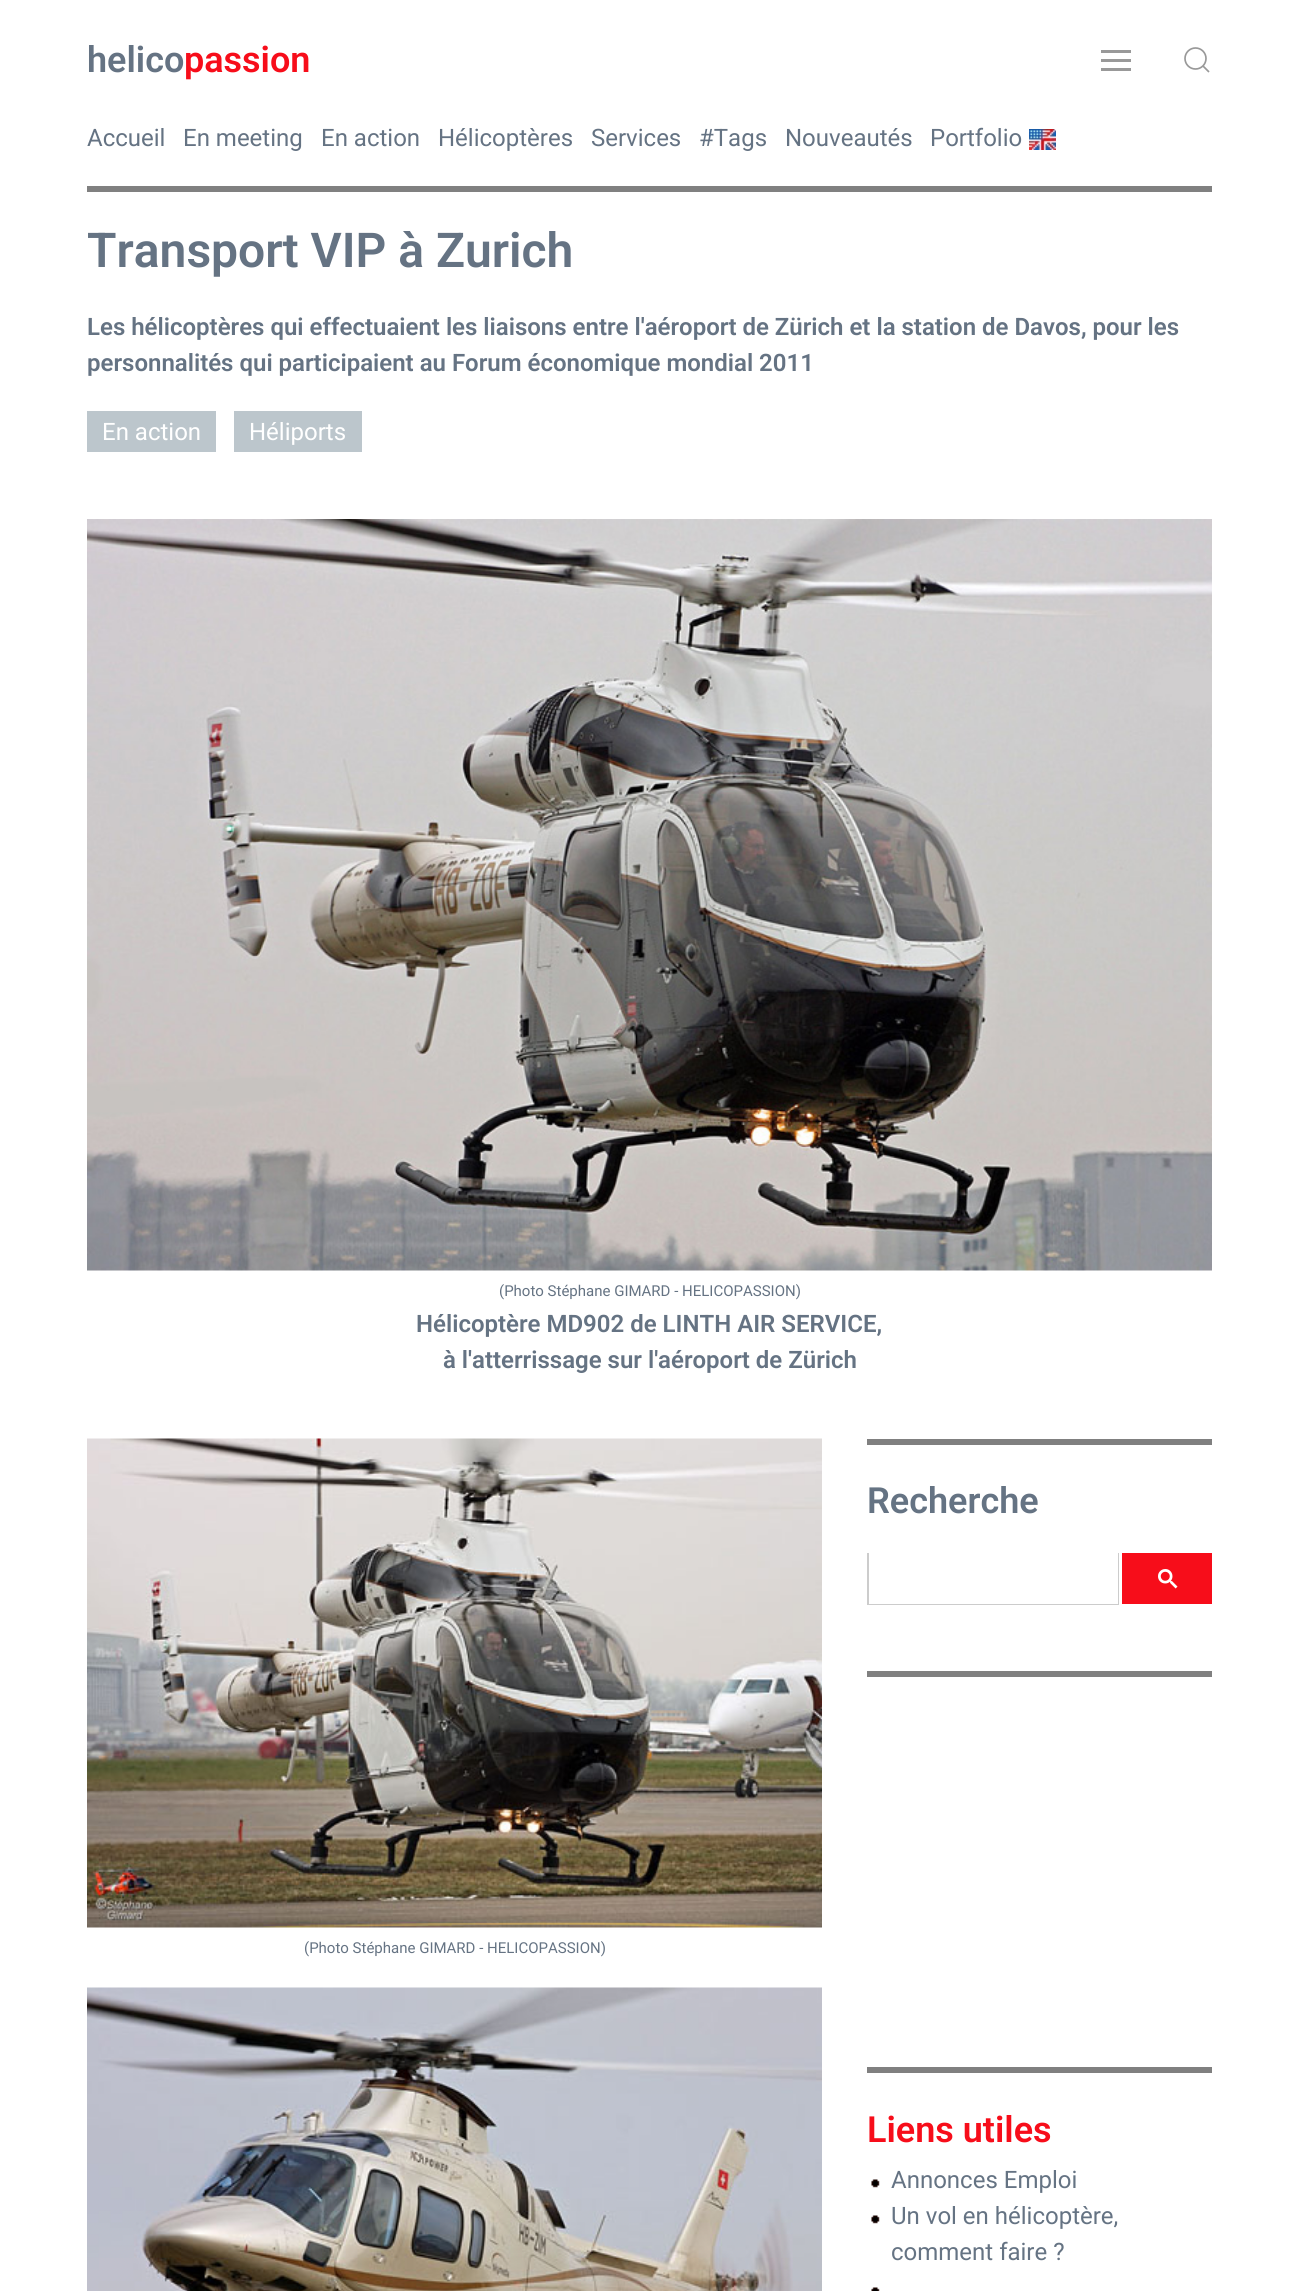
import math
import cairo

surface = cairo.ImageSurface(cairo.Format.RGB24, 1298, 2291)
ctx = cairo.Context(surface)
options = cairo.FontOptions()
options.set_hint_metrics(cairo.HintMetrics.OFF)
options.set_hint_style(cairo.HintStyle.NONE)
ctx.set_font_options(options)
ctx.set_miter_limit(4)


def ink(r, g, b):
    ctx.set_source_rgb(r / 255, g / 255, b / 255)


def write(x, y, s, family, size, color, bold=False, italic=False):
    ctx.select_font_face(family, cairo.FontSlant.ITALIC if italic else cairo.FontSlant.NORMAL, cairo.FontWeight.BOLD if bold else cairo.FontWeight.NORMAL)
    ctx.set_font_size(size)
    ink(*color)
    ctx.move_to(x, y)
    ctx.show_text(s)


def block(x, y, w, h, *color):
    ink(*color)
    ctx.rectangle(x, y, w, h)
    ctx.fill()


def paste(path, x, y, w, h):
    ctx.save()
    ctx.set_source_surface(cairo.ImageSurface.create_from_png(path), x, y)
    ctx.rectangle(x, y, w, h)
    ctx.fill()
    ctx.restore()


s1 = dict(family="Roboto SemiBold", size=36, color=(101, 115, 131))
s2 = dict(family="Roboto SemiBold", size=36, color=(247, 13, 26))
s3 = dict(family="Roboto", size=24, color=(101, 115, 131))
s4 = dict(family="Roboto SemiBold", size=48, color=(101, 115, 131))
s5 = dict(family="Roboto SemiBold", size=24, color=(101, 115, 131))
s6 = dict(family="Roboto", size=24, color=(255, 255, 255))
s7 = dict(family="Roboto", size=15, color=(101, 115, 131))

ink(255, 255, 255)
ctx.paint()
write(87, 72, "helico", **s1)
write(184, 72, "passion", **s2)
block(1101, 50, 30, 3, 153, 153, 153)
block(1101, 59, 30, 3, 153, 153, 153)
block(1101, 68, 30, 3, 153, 153, 153)
ctx.new_path()
ctx.arc(1195.5, 58.5, 10.5, 0, 2 * math.pi)
ctx.set_line_width(1.7)
ctx.stroke()
ctx.new_path()
ctx.move_to(1203, 66)
ctx.line_to(1209, 72)
ctx.close_path()
ctx.stroke()
write(87, 146, "Accueil", **s3)
write(183, 146, "En meeting", **s3)
write(321, 146, "En action", **s3)
write(438, 146, "Hélicoptères", **s3)
write(591, 146, "Services", **s3)
write(699, 146, "#Tags", **s3)
write(785, 146, "Nouveautés", **s3)
write(930, 146, "Portfolio", **s3)
paste("pic1.png", 1029, 129, 27, 21)
block(87, 186, 1125, 6, 128, 128, 128)
write(87, 267, "Transport VIP à Zurich", **s4)
write(87, 335, "Les hélicoptères qui effectuaient les liaisons entre l'aéroport de Zürich et la station de Davos, pour les", **s5)
write(87, 371, "personnalités qui participaient au Forum économique mondial 2011", **s5)
block(87, 411, 129, 41, 188, 198, 204)
write(102, 440, "En action", **s6)
block(234, 411, 128, 41, 188, 198, 204)
write(249, 440, "Héliports", **s6)
paste("pic2.png", 87, 519, 1125, 752)
write(499, 1296, "(Photo Stéphane GIMARD - HELICOPASSION)", **s7)
write(416, 1332, "Hélicoptère MD902 de LINTH AIR SERVICE,", **s5)
write(443, 1368, "à l'atterrissage sur l'aéroport de Zürich", **s5)
paste("pic3.png", 87, 1438, 735, 490)
write(304, 1953, "(Photo Stéphane GIMARD - HELICOPASSION)", **s7)
paste("pic4.png", 87, 1987, 735, 304)
block(867, 1439, 345, 6, 128, 128, 128)
write(867, 1513, "Recherche", **s1)
ctx.rectangle(868, 1554, 250, 50)
ink(204, 204, 204)
ctx.set_line_width(2)
ctx.stroke()
block(869, 1553, 249, 51, 255, 255, 255)
block(1122, 1553, 90, 51, 247, 13, 26)
paste("pic5.png", 1158, 1569, 20, 20)
block(867, 1671, 345, 6, 128, 128, 128)
block(867, 2067, 345, 6, 128, 128, 128)
write(867, 2142, "Liens utiles", **s2)
paste("pic6.png", 871, 2179, 9, 9)
write(891, 2188, "Annonces Emploi", **s3)
paste("pic6.png", 871, 2215, 9, 9)
write(891, 2224, "Un vol en hélicoptère,", **s3)
write(891, 2260, "comment faire ?", **s3)
paste("pic7.png", 871, 2287, 9, 4)
surface.write_to_png("screenshot.png")
